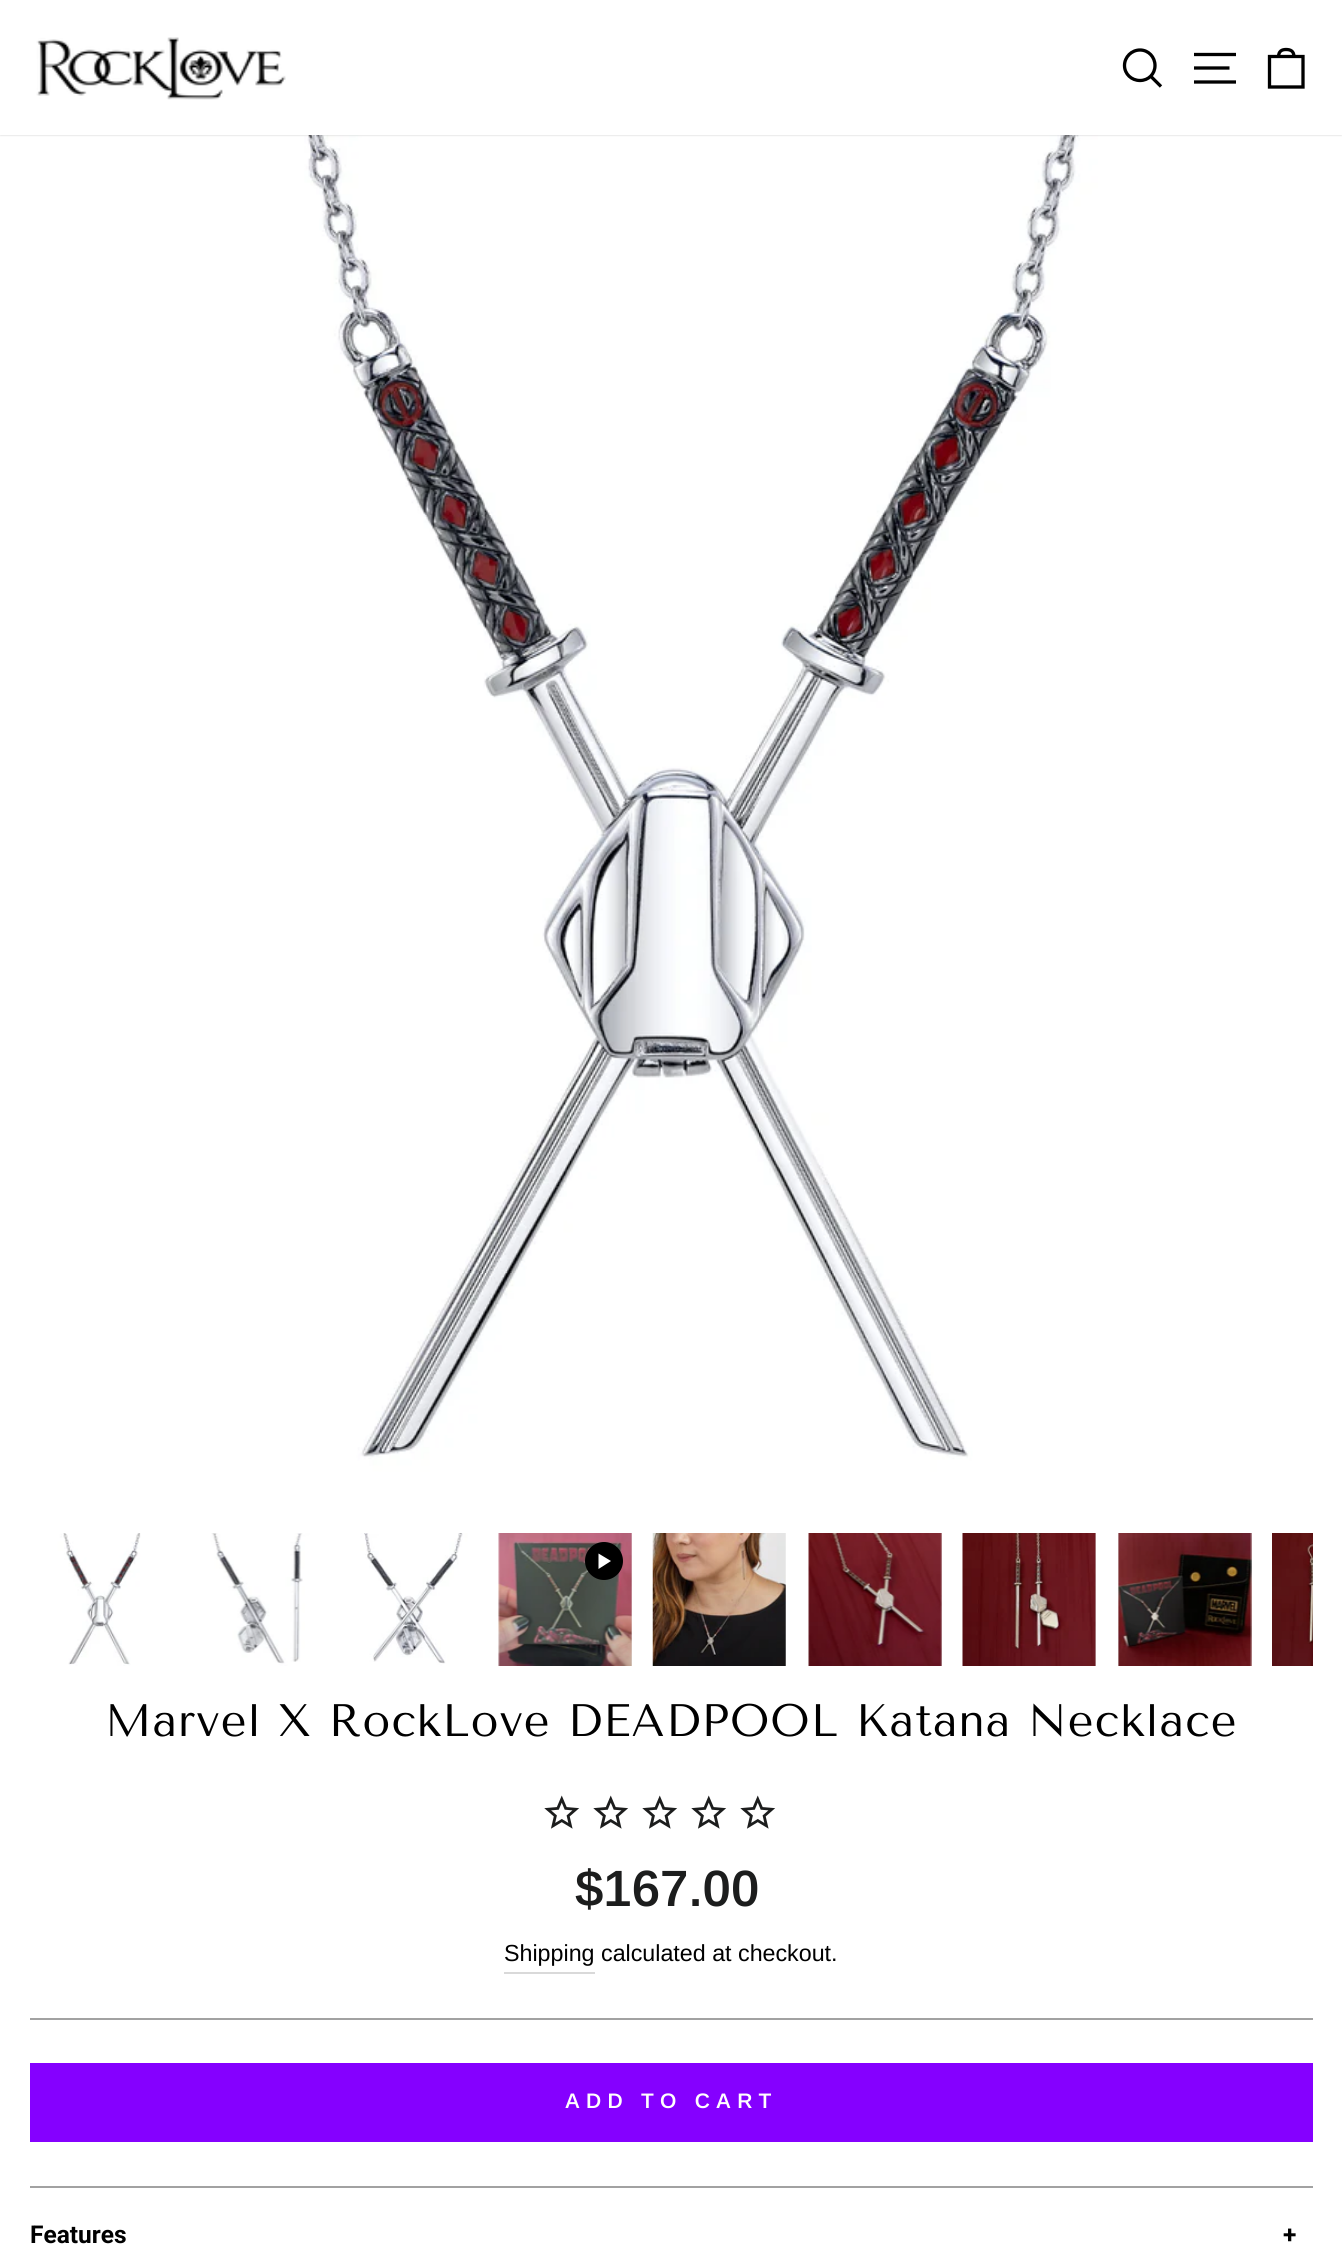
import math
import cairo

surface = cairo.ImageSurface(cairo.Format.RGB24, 1342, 2248)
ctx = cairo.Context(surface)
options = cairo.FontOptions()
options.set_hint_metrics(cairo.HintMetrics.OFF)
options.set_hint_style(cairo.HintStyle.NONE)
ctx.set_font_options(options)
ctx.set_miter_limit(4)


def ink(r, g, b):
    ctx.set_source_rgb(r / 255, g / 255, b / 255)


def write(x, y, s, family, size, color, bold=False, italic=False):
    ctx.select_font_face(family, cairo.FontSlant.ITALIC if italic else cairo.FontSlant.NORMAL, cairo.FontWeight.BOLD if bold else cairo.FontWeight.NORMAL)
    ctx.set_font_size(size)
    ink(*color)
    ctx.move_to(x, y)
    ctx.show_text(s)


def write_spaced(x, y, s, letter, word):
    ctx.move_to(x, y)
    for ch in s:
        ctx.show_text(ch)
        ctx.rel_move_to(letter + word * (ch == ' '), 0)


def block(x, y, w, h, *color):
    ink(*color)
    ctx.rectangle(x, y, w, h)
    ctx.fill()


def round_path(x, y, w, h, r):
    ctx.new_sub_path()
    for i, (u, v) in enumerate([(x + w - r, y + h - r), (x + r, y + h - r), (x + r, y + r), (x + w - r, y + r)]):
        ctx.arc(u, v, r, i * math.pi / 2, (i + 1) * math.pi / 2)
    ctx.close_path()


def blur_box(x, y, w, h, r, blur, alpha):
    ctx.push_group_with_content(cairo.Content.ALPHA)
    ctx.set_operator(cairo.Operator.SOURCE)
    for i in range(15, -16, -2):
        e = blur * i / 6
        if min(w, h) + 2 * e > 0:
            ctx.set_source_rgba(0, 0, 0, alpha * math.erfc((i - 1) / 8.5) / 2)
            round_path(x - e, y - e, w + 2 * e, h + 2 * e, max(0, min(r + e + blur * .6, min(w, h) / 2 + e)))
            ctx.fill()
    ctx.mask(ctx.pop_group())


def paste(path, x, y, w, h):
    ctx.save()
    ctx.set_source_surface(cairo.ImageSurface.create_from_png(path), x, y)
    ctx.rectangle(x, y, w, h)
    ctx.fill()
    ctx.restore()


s1 = dict(family="Arimo SemiBold", size=51, color=(28, 29, 29))
s2 = dict(family="Arimo", size=23.25, color=(0, 0, 0))
s3 = dict(family="Roboto", size=24.5, color=(0, 0, 0), bold=True)

ink(255, 255, 255)
ctx.paint()
paste("pic2.png", 0, 135, 1342, 1342)
ink(0, 0, 0)
blur_box(0, 0, 1342, 135, 0, 1, 0.2)
block(0, 0, 1342, 135, 255, 255, 255)
paste("pic1.png", 36, 37, 250, 63)
ctx.new_path()
ctx.move_to(1155, 65.5)
ctx.curve_to(1155, 74, 1148.5, 80.5, 1140, 80.5)
ctx.curve_to(1131.5, 80.5, 1124.5, 74, 1124.5, 65.5)
ctx.curve_to(1124.5, 57, 1131.5, 50, 1140, 50)
ctx.curve_to(1148.5, 50, 1155, 57, 1155, 65.5)
ctx.close_path()
ctx.move_to(1161, 86.5)
ctx.line_to(1151, 76.5)
ink(0, 0, 0)
ctx.set_line_width(3.3)
ctx.stroke()
ctx.new_path()
ctx.move_to(1194, 54.5)
ctx.line_to(1236, 54.5)
ctx.move_to(1194, 68)
ctx.line_to(1229.5, 68)
ctx.move_to(1194, 82)
ctx.line_to(1236, 82)
ctx.stroke()
ctx.new_path()
ctx.move_to(1269.5, 56.5)
ctx.line_to(1303, 56.5)
ctx.line_to(1303, 87)
ctx.line_to(1269.5, 87)
ctx.close_path()
ctx.move_to(1278.5, 57)
ctx.curve_to(1278.5, 51, 1282, 49.5, 1286, 49.5)
ctx.curve_to(1290.5, 49.5, 1294, 51, 1294, 57)
ctx.stroke()
paste("pic3.png", 33, 1533, 133, 133)
paste("pic4.png", 189, 1533, 133, 133)
paste("pic5.png", 343, 1533, 133, 133)
block(499, 1533, 133, 133, 229, 229, 229)
paste("pic6.png", 498, 1533, 134, 133)
ink(0, 0, 0)
ctx.arc(604, 1561, 19, 0, 2 * math.pi)
ctx.fill()
ink(255, 255, 255)
ctx.new_path()
ctx.move_to(598.5, 1553.5)
ctx.line_to(598.5, 1569)
ctx.line_to(611, 1561)
ctx.close_path()
ctx.fill()
paste("pic7.png", 652, 1533, 134, 133)
block(809, 1533, 133, 133, 229, 229, 229)
paste("pic8.png", 808, 1533, 134, 133)
block(1095, 1533, 1, 133, 229, 229, 229)
paste("pic9.png", 962, 1533, 134, 133)
block(1118, 1533, 133, 133, 229, 229, 229)
paste("pic10.png", 1118, 1533, 134, 133)
paste("pic11.png", 1272, 1533, 41, 133)
ctx.select_font_face("Tenor Sans")
ctx.set_font_size(45.5)
ink(0, 0, 0)
write_spaced(105, 1736, "Marvel X RockLove DEADPOOL Katana Necklace", 0.9, 0)
paste("pic12.png", 544, 1795, 36, 34)
paste("pic12.png", 593, 1795, 36, 34)
paste("pic12.png", 642, 1795, 36, 34)
paste("pic12.png", 691, 1795, 36, 34)
paste("pic12.png", 740, 1795, 36, 34)
write(575, 1906, "$167.00", **s1)
block(504, 1972, 91, 2, 217, 217, 217)
write(504, 1961, "Shipping", **s2)
write(601, 1961, "calculated at checkout.", **s2)
block(30, 2018, 1283, 2, 162, 162, 162)
block(30, 2063, 1283, 79, 133, 0, 255)
ctx.select_font_face("Arimo SemiBold")
ctx.set_font_size(21)
ink(255, 255, 255)
write_spaced(565, 2108, "ADD TO CART", 6.25, 0)
block(30, 2186, 1283, 2, 162, 162, 162)
write(30, 2243, "Features", **s3)
write(1283, 2243, "+", **s3)
surface.write_to_png("screenshot.png")
